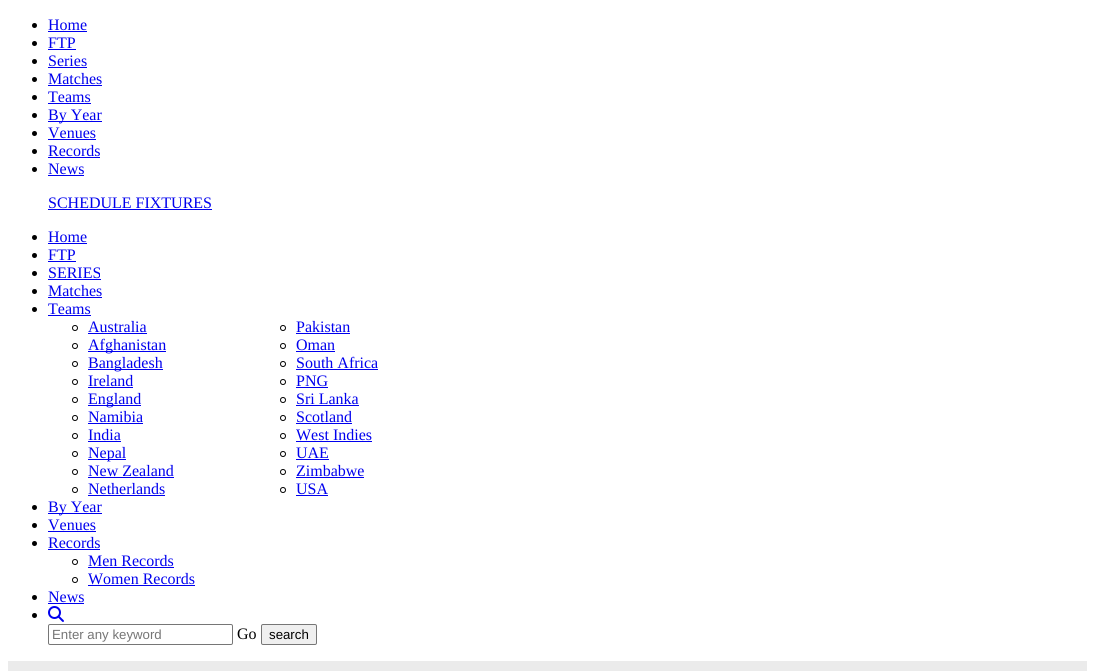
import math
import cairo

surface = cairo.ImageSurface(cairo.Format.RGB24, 1095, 671)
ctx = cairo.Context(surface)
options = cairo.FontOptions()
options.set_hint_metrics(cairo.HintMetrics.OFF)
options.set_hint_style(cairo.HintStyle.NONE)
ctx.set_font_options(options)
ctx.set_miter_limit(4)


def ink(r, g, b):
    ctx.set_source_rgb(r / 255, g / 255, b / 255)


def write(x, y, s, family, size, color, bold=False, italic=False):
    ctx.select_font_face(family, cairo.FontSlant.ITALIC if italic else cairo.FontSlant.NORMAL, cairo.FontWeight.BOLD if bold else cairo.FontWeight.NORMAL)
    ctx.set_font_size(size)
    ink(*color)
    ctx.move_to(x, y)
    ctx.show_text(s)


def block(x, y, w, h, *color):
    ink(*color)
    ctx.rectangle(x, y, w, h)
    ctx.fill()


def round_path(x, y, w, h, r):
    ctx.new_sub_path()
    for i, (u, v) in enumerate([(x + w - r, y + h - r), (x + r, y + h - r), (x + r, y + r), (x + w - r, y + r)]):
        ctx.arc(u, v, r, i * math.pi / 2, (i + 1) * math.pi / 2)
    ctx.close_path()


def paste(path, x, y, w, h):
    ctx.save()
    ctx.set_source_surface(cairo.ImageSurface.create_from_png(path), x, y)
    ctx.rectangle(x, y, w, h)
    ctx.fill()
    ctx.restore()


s1 = dict(family="Liberation Serif", size=16, color=(0, 0, 238))
s2 = dict(family="Liberation Sans", size=13.25, color=(117, 117, 117))
s3 = dict(family="Liberation Serif", size=16, color=(0, 0, 0))
s4 = dict(family="Liberation Sans", size=13.25, color=(0, 0, 0))

ink(255, 255, 255)
ctx.paint()
ink(0, 0, 0)
ctx.arc(34.5, 25.5, 2.5, 0, 2 * math.pi)
ctx.fill()
write(48, 30, "Home", **s1)
block(48, 31, 39, 1, 0, 0, 238)
ink(0, 0, 0)
ctx.new_path()
ctx.arc(34.5, 43.5, 2.5, 0, 2 * math.pi)
ctx.fill()
write(48, 48, "FTP", **s1)
block(48, 49, 28, 1, 0, 0, 238)
ink(0, 0, 0)
ctx.new_path()
ctx.arc(34.5, 61.5, 2.5, 0, 2 * math.pi)
ctx.fill()
write(48, 66, "Series", **s1)
block(48, 67, 39, 1, 0, 0, 238)
ink(0, 0, 0)
ctx.new_path()
ctx.arc(34.5, 79.5, 2.5, 0, 2 * math.pi)
ctx.fill()
write(48, 84, "Matches", **s1)
block(48, 85, 54, 1, 0, 0, 238)
ink(0, 0, 0)
ctx.new_path()
ctx.arc(34.5, 97.5, 2.5, 0, 2 * math.pi)
ctx.fill()
write(48, 102, "Teams", **s1)
block(48, 103, 43, 1, 0, 0, 238)
ink(0, 0, 0)
ctx.new_path()
ctx.arc(34.5, 115.5, 2.5, 0, 2 * math.pi)
ctx.fill()
block(48, 121, 54, 1, 0, 0, 238)
write(48, 120, "By Year", **s1)
ink(0, 0, 0)
ctx.new_path()
ctx.arc(34.5, 133.5, 2.5, 0, 2 * math.pi)
ctx.fill()
write(48, 138, "Venues", **s1)
block(48, 139, 48, 1, 0, 0, 238)
ink(0, 0, 0)
ctx.new_path()
ctx.arc(34.5, 151.5, 2.5, 0, 2 * math.pi)
ctx.fill()
write(48, 156, "Records", **s1)
block(48, 157, 52, 1, 0, 0, 238)
ink(0, 0, 0)
ctx.new_path()
ctx.arc(34.5, 169.5, 2.5, 0, 2 * math.pi)
ctx.fill()
write(48, 174, "News", **s1)
block(48, 175, 36, 1, 0, 0, 238)
write(48, 208, "SCHEDULE FIXTURES", **s1)
block(48, 209, 164, 1, 0, 0, 238)
ink(0, 0, 0)
ctx.new_path()
ctx.arc(34.5, 237.5, 2.5, 0, 2 * math.pi)
ctx.fill()
write(48, 242, "Home", **s1)
block(48, 243, 39, 1, 0, 0, 238)
ink(0, 0, 0)
ctx.new_path()
ctx.arc(34.5, 255.5, 2.5, 0, 2 * math.pi)
ctx.fill()
write(48, 260, "FTP", **s1)
block(48, 261, 28, 1, 0, 0, 238)
ink(0, 0, 0)
ctx.new_path()
ctx.arc(34.5, 273.5, 2.5, 0, 2 * math.pi)
ctx.fill()
write(48, 278, "SERIES", **s1)
block(48, 279, 53, 1, 0, 0, 238)
ink(0, 0, 0)
ctx.new_path()
ctx.arc(34.5, 291.5, 2.5, 0, 2 * math.pi)
ctx.fill()
write(48, 296, "Matches", **s1)
block(48, 297, 54, 1, 0, 0, 238)
ink(0, 0, 0)
ctx.new_path()
ctx.arc(34.5, 309.5, 2.5, 0, 2 * math.pi)
ctx.fill()
write(48, 314, "Teams", **s1)
block(48, 315, 43, 1, 0, 0, 238)
ctx.new_path()
ctx.arc(75, 328, 2.5, 0, 2 * math.pi)
ink(0, 0, 0)
ctx.set_line_width(1)
ctx.stroke()
write(88, 332, "Australia", **s1)
block(88, 333, 59, 1, 0, 0, 238)
ctx.new_path()
ctx.arc(283, 328, 2.5, 0, 2 * math.pi)
ink(0, 0, 0)
ctx.stroke()
write(296, 332, "Pakistan", **s1)
block(296, 333, 54, 1, 0, 0, 238)
ctx.new_path()
ctx.arc(75, 346, 2.5, 0, 2 * math.pi)
ink(0, 0, 0)
ctx.stroke()
block(88, 351, 78, 1, 0, 0, 238)
write(88, 350, "Afghanistan", **s1)
ctx.new_path()
ctx.arc(283, 346, 2.5, 0, 2 * math.pi)
ink(0, 0, 0)
ctx.stroke()
write(296, 350, "Oman", **s1)
block(296, 351, 39, 1, 0, 0, 238)
ctx.new_path()
ctx.arc(75, 364, 2.5, 0, 2 * math.pi)
ink(0, 0, 0)
ctx.stroke()
block(88, 369, 75, 1, 0, 0, 238)
write(88, 368, "Bangladesh", **s1)
ctx.new_path()
ctx.arc(283, 364, 2.5, 0, 2 * math.pi)
ink(0, 0, 0)
ctx.stroke()
write(296, 368, "South Africa", **s1)
block(296, 369, 82, 1, 0, 0, 238)
ctx.new_path()
ctx.arc(75, 382, 2.5, 0, 2 * math.pi)
ink(0, 0, 0)
ctx.stroke()
write(88, 386, "Ireland", **s1)
block(88, 387, 45, 1, 0, 0, 238)
ctx.new_path()
ctx.arc(283, 382, 2.5, 0, 2 * math.pi)
ink(0, 0, 0)
ctx.stroke()
write(296, 386, "PNG", **s1)
block(296, 387, 32, 1, 0, 0, 238)
ctx.new_path()
ctx.arc(75, 400, 2.5, 0, 2 * math.pi)
ink(0, 0, 0)
ctx.stroke()
block(88, 405, 53, 1, 0, 0, 238)
write(88, 404, "England", **s1)
ctx.new_path()
ctx.arc(283, 400, 2.5, 0, 2 * math.pi)
ink(0, 0, 0)
ctx.stroke()
write(296, 404, "Sri Lanka", **s1)
block(296, 405, 63, 1, 0, 0, 238)
ctx.new_path()
ctx.arc(75, 418, 2.5, 0, 2 * math.pi)
ink(0, 0, 0)
ctx.stroke()
write(88, 422, "Namibia", **s1)
block(88, 423, 55, 1, 0, 0, 238)
ctx.new_path()
ctx.arc(283, 418, 2.5, 0, 2 * math.pi)
ink(0, 0, 0)
ctx.stroke()
write(296, 422, "Scotland", **s1)
block(296, 423, 56, 1, 0, 0, 238)
ctx.new_path()
ctx.arc(75, 436, 2.5, 0, 2 * math.pi)
ink(0, 0, 0)
ctx.stroke()
write(88, 440, "India", **s1)
block(88, 441, 33, 1, 0, 0, 238)
ctx.new_path()
ctx.arc(283, 436, 2.5, 0, 2 * math.pi)
ink(0, 0, 0)
ctx.stroke()
write(296, 440, "West Indies", **s1)
block(296, 441, 76, 1, 0, 0, 238)
ctx.new_path()
ctx.arc(75, 454, 2.5, 0, 2 * math.pi)
ink(0, 0, 0)
ctx.stroke()
block(88, 459, 38, 1, 0, 0, 238)
write(88, 458, "Nepal", **s1)
ctx.new_path()
ctx.arc(283, 454, 2.5, 0, 2 * math.pi)
ink(0, 0, 0)
ctx.stroke()
write(296, 458, "UAE", **s1)
block(296, 459, 33, 1, 0, 0, 238)
ctx.new_path()
ctx.arc(75, 472, 2.5, 0, 2 * math.pi)
ink(0, 0, 0)
ctx.stroke()
write(88, 476, "New Zealand", **s1)
block(88, 477, 86, 1, 0, 0, 238)
ctx.new_path()
ctx.arc(283, 472, 2.5, 0, 2 * math.pi)
ink(0, 0, 0)
ctx.stroke()
write(296, 476, "Zimbabwe", **s1)
block(296, 477, 68, 1, 0, 0, 238)
ctx.new_path()
ctx.arc(75, 490, 2.5, 0, 2 * math.pi)
ink(0, 0, 0)
ctx.stroke()
write(88, 494, "Netherlands", **s1)
block(88, 495, 77, 1, 0, 0, 238)
ctx.new_path()
ctx.arc(283, 490, 2.5, 0, 2 * math.pi)
ink(0, 0, 0)
ctx.stroke()
write(296, 494, "USA", **s1)
block(296, 495, 32, 1, 0, 0, 238)
ink(0, 0, 0)
ctx.new_path()
ctx.arc(34.5, 507.5, 2.5, 0, 2 * math.pi)
ctx.fill()
block(48, 513, 54, 1, 0, 0, 238)
write(48, 512, "By Year", **s1)
ink(0, 0, 0)
ctx.new_path()
ctx.arc(34.5, 525.5, 2.5, 0, 2 * math.pi)
ctx.fill()
write(48, 530, "Venues", **s1)
block(48, 531, 48, 1, 0, 0, 238)
ink(0, 0, 0)
ctx.new_path()
ctx.arc(34.5, 543.5, 2.5, 0, 2 * math.pi)
ctx.fill()
write(48, 548, "Records", **s1)
block(48, 549, 52, 1, 0, 0, 238)
ctx.new_path()
ctx.arc(75, 562, 2.5, 0, 2 * math.pi)
ink(0, 0, 0)
ctx.stroke()
write(88, 566, "Men Records", **s1)
block(88, 567, 86, 1, 0, 0, 238)
ctx.new_path()
ctx.arc(75, 580, 2.5, 0, 2 * math.pi)
ink(0, 0, 0)
ctx.stroke()
write(88, 584, "Women Records", **s1)
block(88, 585, 107, 1, 0, 0, 238)
ink(0, 0, 0)
ctx.new_path()
ctx.arc(34.5, 597.5, 2.5, 0, 2 * math.pi)
ctx.fill()
write(48, 602, "News", **s1)
block(48, 603, 36, 1, 0, 0, 238)
ink(0, 0, 0)
ctx.new_path()
ctx.arc(34.5, 615.5, 2.5, 0, 2 * math.pi)
ctx.fill()
paste("pic1.png", 48, 606, 16, 16)
round_path(48.5, 624.5, 184, 20, 1.5)
ink(118, 118, 118)
ctx.stroke()
write(52, 639, "Enter any keyword", **s2)
write(237, 639, "Go", **s3)
ink(239, 239, 239)
round_path(261.5, 624.5, 55, 20, 1.5)
ctx.fill_preserve()
ink(118, 118, 118)
ctx.stroke()
write(269, 639, "search", **s4)
block(8, 661, 1079, 10, 235, 235, 235)
surface.write_to_png("screenshot.png")
